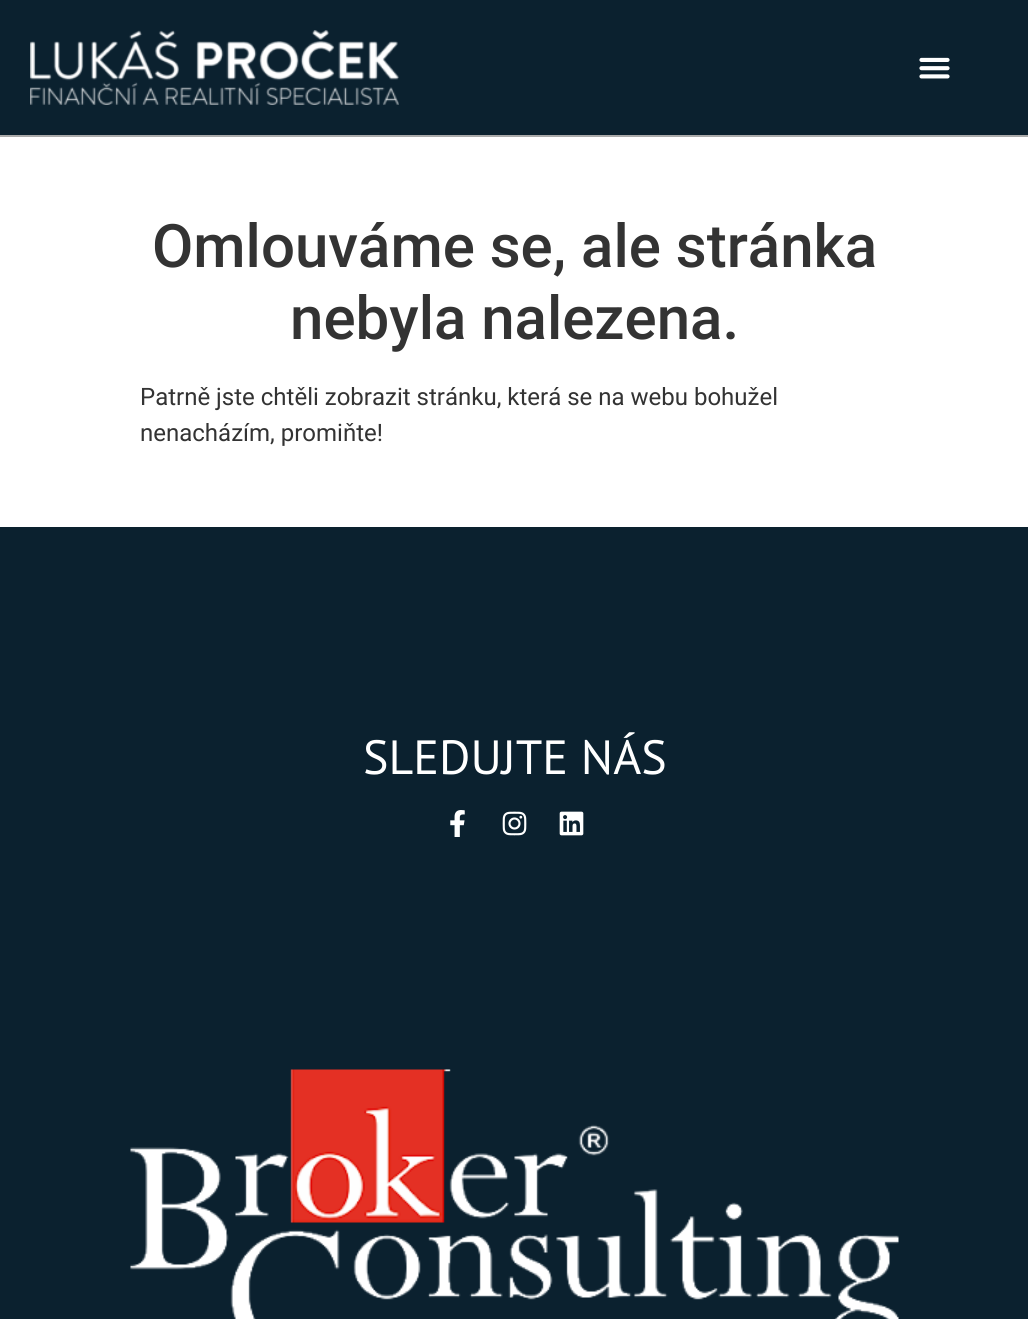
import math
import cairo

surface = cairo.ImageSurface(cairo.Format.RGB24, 1028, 1319)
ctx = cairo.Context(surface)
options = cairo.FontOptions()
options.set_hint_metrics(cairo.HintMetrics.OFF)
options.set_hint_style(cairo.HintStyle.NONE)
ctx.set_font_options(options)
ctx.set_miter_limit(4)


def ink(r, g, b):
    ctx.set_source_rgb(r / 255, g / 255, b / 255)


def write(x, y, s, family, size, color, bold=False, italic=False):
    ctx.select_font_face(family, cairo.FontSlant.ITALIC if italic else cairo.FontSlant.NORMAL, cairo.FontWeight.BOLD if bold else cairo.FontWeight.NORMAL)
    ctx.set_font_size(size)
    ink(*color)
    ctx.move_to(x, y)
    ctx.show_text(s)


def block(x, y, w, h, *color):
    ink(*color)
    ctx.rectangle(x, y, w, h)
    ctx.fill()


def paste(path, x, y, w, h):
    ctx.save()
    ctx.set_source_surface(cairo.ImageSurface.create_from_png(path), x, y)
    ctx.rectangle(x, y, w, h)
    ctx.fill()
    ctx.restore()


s1 = dict(family="Roboto Medium", size=60, color=(51, 51, 51))
s2 = dict(family="Roboto", size=24, color=(51, 51, 51))
s3 = dict(family="PT Sans", size=48, color=(255, 255, 255))

ink(255, 255, 255)
ctx.paint()
block(0, 0, 1028, 135, 11, 33, 47)
block(0, 135, 1028, 2, 170, 170, 170)
paste("pic1.png", 30, 30, 369, 75)
paste("pic2.png", 919, 57, 31, 22)
write(152, 267, "Omlouváme se, ale stránka", **s1)
write(290, 339, "nebyla nalezena.", **s1)
write(140, 405, "Patrně jste chtěli zobrazit stránku, která se na webu bohužel", **s2)
write(140, 441, "nenacházím, promiňte!", **s2)
block(0, 527, 1028, 792, 11, 33, 47)
write(363, 774, "SLEDUJTE NÁS", **s3)
paste("pic3.png", 450, 810, 15, 27)
paste("pic4.png", 502, 811, 25, 25)
paste("pic5.png", 559, 811, 25, 25)
paste("pic6.png", 130, 1069, 769, 250)
surface.write_to_png("screenshot.png")
